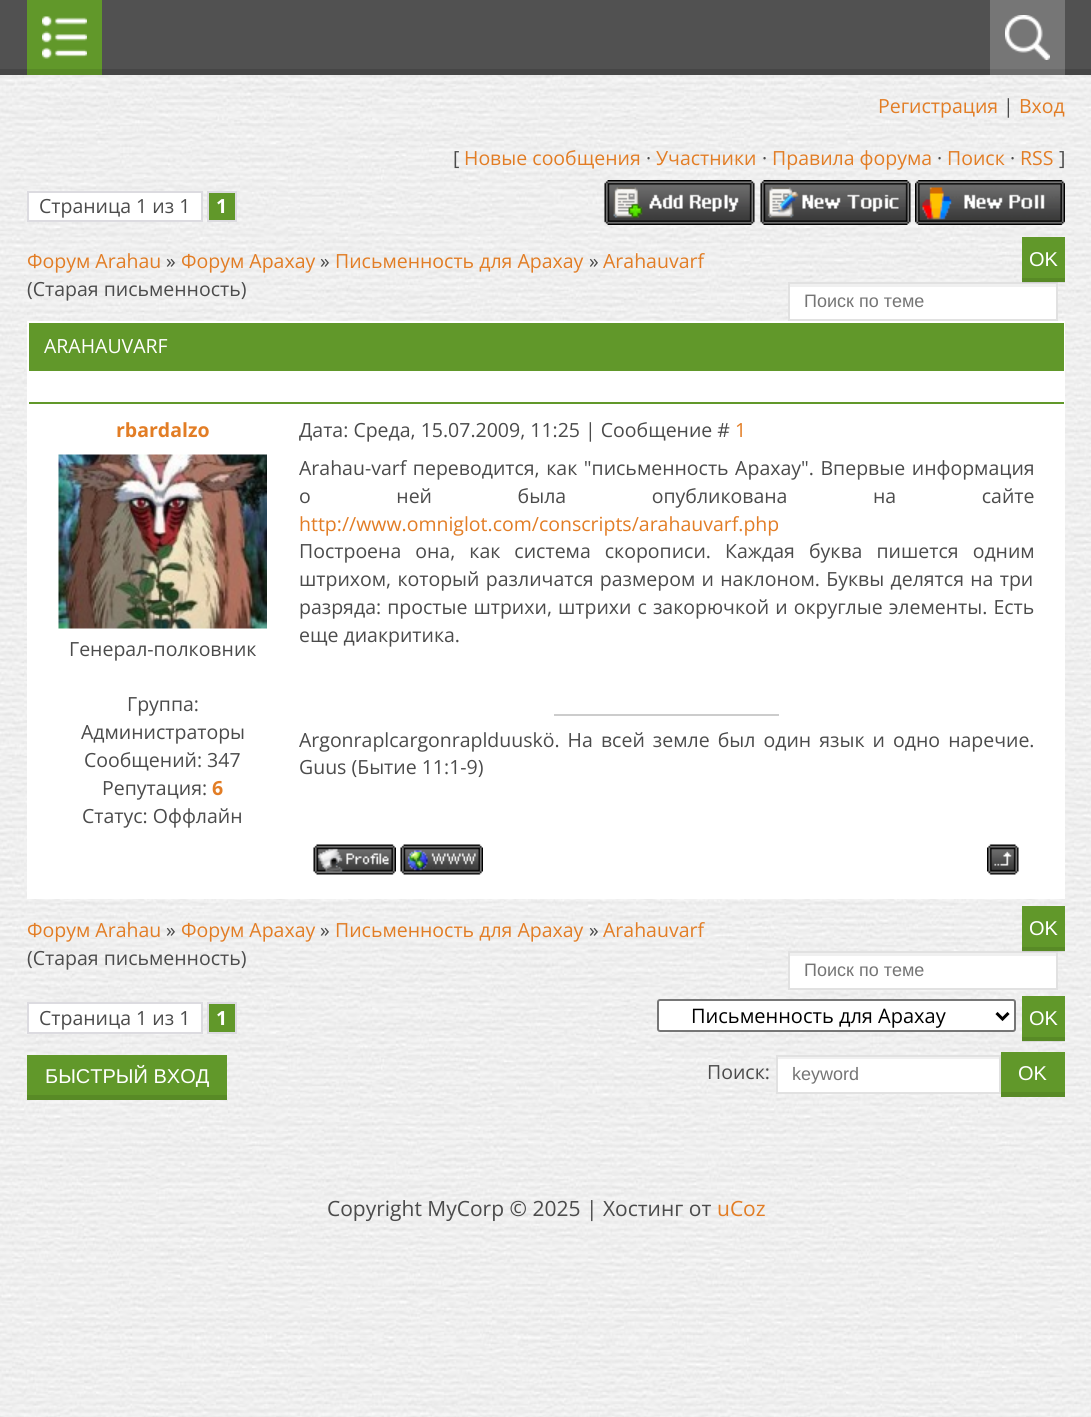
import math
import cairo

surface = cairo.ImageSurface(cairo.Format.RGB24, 1091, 1417)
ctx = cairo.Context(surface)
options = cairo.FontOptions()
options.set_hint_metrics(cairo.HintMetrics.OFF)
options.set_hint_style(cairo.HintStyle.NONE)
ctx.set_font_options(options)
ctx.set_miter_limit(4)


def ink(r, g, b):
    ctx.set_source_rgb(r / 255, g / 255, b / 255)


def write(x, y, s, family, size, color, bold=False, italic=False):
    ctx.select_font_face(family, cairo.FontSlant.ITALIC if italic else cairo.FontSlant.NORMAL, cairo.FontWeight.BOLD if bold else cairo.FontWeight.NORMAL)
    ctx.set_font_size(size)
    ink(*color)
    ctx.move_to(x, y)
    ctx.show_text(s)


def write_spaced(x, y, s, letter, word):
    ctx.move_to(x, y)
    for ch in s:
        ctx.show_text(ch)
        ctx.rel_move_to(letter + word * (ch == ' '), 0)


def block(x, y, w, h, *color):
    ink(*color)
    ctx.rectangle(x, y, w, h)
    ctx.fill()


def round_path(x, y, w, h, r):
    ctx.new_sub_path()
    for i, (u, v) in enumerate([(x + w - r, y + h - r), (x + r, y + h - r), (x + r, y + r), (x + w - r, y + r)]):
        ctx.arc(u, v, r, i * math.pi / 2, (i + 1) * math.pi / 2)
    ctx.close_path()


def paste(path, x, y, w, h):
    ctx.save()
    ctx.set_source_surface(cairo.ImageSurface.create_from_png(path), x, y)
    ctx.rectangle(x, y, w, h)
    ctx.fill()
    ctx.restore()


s1 = dict(family="Open Sans", size=19.5, color=(226, 125, 37))
s2 = dict(family="Open Sans", size=19.5, color=(75, 75, 75))
s3 = dict(family="Open Sans", size=19.5, color=(255, 255, 255), bold=True)
s4 = dict(family="Liberation Sans", size=20, color=(255, 255, 255))
s5 = dict(family="Liberation Sans", size=18, color=(117, 117, 117))
s6 = dict(family="Open Sans", size=19.5, color=(255, 255, 255))
s7 = dict(family="Open Sans", size=19.5, color=(226, 125, 37), bold=True)
s8 = dict(family="Open Sans", size=20, color=(0, 0, 0))
s9 = dict(family="Open Sans", size=21, color=(75, 75, 75))
s10 = dict(family="Open Sans", size=21, color=(226, 125, 37))

ink(255, 255, 255)
ctx.paint()
paste("pic1.png", 0, 75, 1091, 1342)
block(0, 0, 1091, 69, 81, 81, 81)
block(0, 69, 1091, 6, 70, 70, 70)
block(27, 0, 75, 69, 97, 152, 42)
paste("pic2.png", 42, 16, 45, 43)
block(27, 69, 75, 6, 88, 138, 38)
block(990, 0, 75, 69, 118, 118, 118)
paste("pic3.png", 1005, 15, 45, 45)
block(990, 69, 75, 6, 107, 107, 107)
write(878, 113, "Регистрация", **s1)
write(1003, 113, "|", **s2)
write(1019, 113, "Вход", **s1)
write(453, 165, "[", **s2)
write(464, 165, "Новые сообщения", **s1)
write(646, 165, "·", **s2)
write(656, 165, "Участники", **s1)
write(762, 165, "·", **s2)
write(772, 165, "Правила форума", **s1)
write(937, 165, "·", **s2)
write(947, 165, "Поиск", **s1)
write(1010, 165, "·", **s2)
write(1020, 165, "RSS", **s1)
write(1059, 165, "]", **s2)
ink(255, 255, 255)
ctx.rectangle(28, 192, 174, 29)
ctx.fill_preserve()
ink(220, 219, 224)
ctx.stroke()
write(39, 213, "Страница 1 из 1", **s2)
ink(97, 152, 42)
ctx.rectangle(208, 192, 28, 29)
ctx.fill_preserve()
ink(220, 219, 224)
ctx.stroke()
write(216, 213, "1", **s3)
paste("pic4.png", 604, 180, 151, 45)
paste("pic5.png", 760, 180, 151, 45)
paste("pic6.png", 915, 180, 150, 45)
write(27, 268, "Форум Arahau", **s1)
write(166, 268, "»", **s2)
write(181, 268, "Форум Арахау", **s1)
write(320, 268, "»", **s2)
write(335, 268, "Письменность для Арахау", **s1)
write(589, 268, "»", **s2)
write(603, 268, "Arahauvarf", **s1)
write(27, 296, "(Старая письменность)", **s2)
block(1022, 237, 43, 45, 97, 152, 42)
block(790, 287, 266, 32, 255, 255, 255)
block(789, 284, 267, 3, 240, 240, 240)
ctx.rectangle(789, 283, 268, 37)
ink(225, 225, 225)
ctx.stroke()
ctx.set_source_rgba(0, 0, 0, 0.09)
ctx.rectangle(1022, 278, 43, 5)
ctx.fill()
write(1029, 266, "OK", **s4)
write(804, 307, "Поиск по теме", **s5)
block(27, 321, 1038, 578, 255, 255, 255)
block(29, 323, 1035, 48, 97, 152, 42)
write(44, 353, "ARAHAUVARF", **s6)
block(29, 402, 1035, 2, 97, 152, 42)
write(116, 437, "rbardalzo", **s7)
write(299, 437, "Дата: Среда, 15.07.2009, 11:25 | Сообщение #", **s2)
write(735, 437, "1", **s1)
paste("pic7.png", 58, 454, 209, 175)
write(69, 656, "Генерал-полковник", **s2)
write(127, 711, "Группа:", **s2)
write(81, 739, "Администраторы", **s2)
write(84, 767, "Сообщений: 347", **s2)
write(102, 795, "Репутация:", **s2)
write(212, 795, "6", **s7)
write(82, 823, "Статус: Оффлайн", **s2)
write_spaced(299, 475, "Arahau-varf переводится, как \"письменность Арахау\". Впервые информация", 0, 1.5)
write_spaced(299, 503, "о ней была опубликована на сайте", 0, 80.5)
write(299, 531, "http://www.omniglot.com/conscripts/arahauvarf.php", **s1)
ink(75, 75, 75)
write_spaced(299, 558, "Построена она, как система скорописи. Каждая буква пишется одним", 0, 9)
write_spaced(299, 586, "штрихом, который различатся размером и наклоном. Буквы делятся на три", 0, 1.25)
write_spaced(299, 614, "разряда: простые штрихи, штрихи с закорючкой и округлые элементы. Есть", 0, 1)
write(299, 642, "еще диакритика.", **s2)
block(554, 714, 225, 2, 204, 204, 204)
ink(75, 75, 75)
write_spaced(299, 747, "Argonraplcargonraplduuskö. На всей земле был один язык и одно наречие.", 0, 3)
write(299, 774, "Guus (Бытие 11:1-9)", **s2)
paste("pic8.png", 313, 844, 83, 31)
paste("pic9.png", 400, 844, 83, 31)
paste("pic10.png", 987, 844, 32, 31)
write(27, 937, "Форум Arahau", **s1)
write(166, 937, "»", **s2)
write(181, 937, "Форум Арахау", **s1)
write(320, 937, "»", **s2)
write(335, 937, "Письменность для Арахау", **s1)
write(589, 937, "»", **s2)
write(603, 937, "Arahauvarf", **s1)
write(27, 965, "(Старая письменность)", **s2)
block(1022, 906, 43, 45, 97, 152, 42)
block(790, 956, 266, 32, 255, 255, 255)
block(789, 953, 267, 3, 240, 240, 240)
ctx.rectangle(789, 952, 268, 37)
ink(225, 225, 225)
ctx.stroke()
ctx.set_source_rgba(0, 0, 0, 0.09)
ctx.rectangle(1022, 947, 43, 5)
ctx.fill()
write(1029, 935, "OK", **s4)
write(804, 976, "Поиск по теме", **s5)
ink(255, 255, 255)
ctx.rectangle(28, 1003, 174, 30)
ctx.fill_preserve()
ink(220, 219, 224)
ctx.stroke()
write(39, 1025, "Страница 1 из 1", **s2)
ink(97, 152, 42)
ctx.rectangle(208, 1003, 28, 30)
ctx.fill_preserve()
ink(220, 219, 224)
ctx.stroke()
write(216, 1025, "1", **s3)
round_path(658, 1000, 357, 31, 2)
ctx.fill_preserve()
ink(118, 118, 118)
ctx.stroke()
ctx.new_path()
ctx.move_to(996.5, 1013)
ctx.line_to(1002.5, 1019)
ctx.line_to(1008.5, 1013)
ink(0, 0, 0)
ctx.set_line_width(3)
ctx.stroke()
write(691, 1023, "Письменность для Арахау", **s8)
block(1022, 996, 43, 45, 97, 152, 42)
ctx.set_source_rgba(0, 0, 0, 0.09)
ctx.rectangle(1022, 1037, 43, 5)
ctx.fill()
write(1029, 1025, "OK", **s4)
block(27, 1055, 200, 40, 97, 152, 42)
block(27, 1095, 200, 5, 88, 138, 38)
write(45, 1083, "БЫСТРЫЙ ВХОД", **s4)
write(707, 1079, "Поиск:", **s2)
block(778, 1059, 221, 33, 255, 255, 255)
block(777, 1057, 222, 2, 240, 240, 240)
ctx.rectangle(777, 1056, 223, 37)
ink(225, 225, 225)
ctx.set_line_width(2)
ctx.stroke()
write(792, 1080, "keyword", **s5)
block(1001, 1052, 64, 40, 97, 152, 42)
block(1001, 1092, 64, 5, 88, 138, 38)
write(1018, 1080, "OK", **s4)
write(327, 1216, "Copyright MyCorp © 2025 | Хостинг от", **s9)
write(717, 1216, "uCoz", **s10)
surface.write_to_png("screenshot.png")
